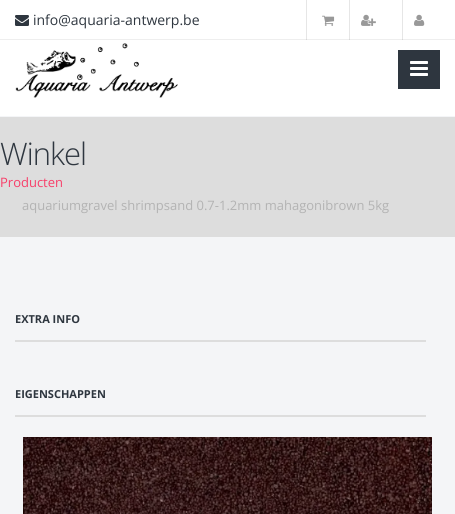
import math
import cairo

surface = cairo.ImageSurface(cairo.Format.RGB24, 455, 514)
ctx = cairo.Context(surface)
options = cairo.FontOptions()
options.set_hint_metrics(cairo.HintMetrics.OFF)
options.set_hint_style(cairo.HintStyle.NONE)
ctx.set_font_options(options)
ctx.set_miter_limit(4)


def ink(r, g, b):
    ctx.set_source_rgb(r / 255, g / 255, b / 255)


def write(x, y, s, family, size, color, bold=False, italic=False):
    ctx.select_font_face(family, cairo.FontSlant.ITALIC if italic else cairo.FontSlant.NORMAL, cairo.FontWeight.BOLD if bold else cairo.FontWeight.NORMAL)
    ctx.set_font_size(size)
    ink(*color)
    ctx.move_to(x, y)
    ctx.show_text(s)


def write_spaced(x, y, s, letter, word):
    ctx.move_to(x, y)
    for ch in s:
        ctx.show_text(ch)
        ctx.rel_move_to(letter + word * (ch == ' '), 0)


def block(x, y, w, h, *color):
    ink(*color)
    ctx.rectangle(x, y, w, h)
    ctx.fill()


def paste(path, x, y, w, h):
    ctx.save()
    ctx.set_source_surface(cairo.ImageSurface.create_from_png(path), x, y)
    ctx.rectangle(x, y, w, h)
    ctx.fill()
    ctx.restore()


s1 = dict(family="Open Sans", size=14, color=(46, 54, 63))
s2 = dict(family="Open Sans", size=13, color=(247, 63, 105))
s3 = dict(family="Open Sans", size=13, color=(179, 179, 179))
s4 = dict(family="Open Sans", size=11, color=(46, 54, 63), bold=True)

ink(244, 245, 247)
ctx.paint()
block(0, 0, 455, 39, 255, 255, 255)
block(0, 39, 455, 1, 238, 238, 238)
paste("pic1.png", 15, 15, 14, 11)
write(33, 25, "info@aquaria-antwerp.be", **s1)
ctx.set_source_rgba(0, 0, 0, 0.1)
ctx.rectangle(306, 0, 1, 40)
ctx.fill()
paste("pic2.png", 322, 15, 13, 11)
ctx.rectangle(349, 0, 1, 40)
ctx.fill()
paste("pic3.png", 361, 14, 15, 12)
ctx.rectangle(402, 0, 1, 40)
ctx.fill()
paste("pic4.png", 414, 14, 11, 12)
block(0, 40, 455, 76, 255, 255, 255)
paste("pic5.png", 15, 43, 163, 55)
block(398, 50, 42, 39, 46, 54, 63)
paste("pic6.png", 410, 61, 18, 15)
block(0, 117, 455, 120, 221, 221, 221)
ctx.select_font_face("Open Sans Light")
ctx.set_font_size(31)
ink(46, 54, 63)
write_spaced(0, 165, "Winkel", -1, 0)
write(0, 187, "Producten", **s2)
write(22, 210, "aquariumgravel shrimpsand 0.7-1.2mm mahagonibrown 5kg", **s3)
block(15, 340, 411, 2, 221, 221, 221)
write(15, 323, "EXTRA INFO", **s4)
block(15, 415, 411, 2, 221, 221, 221)
write(15, 398, "EIGENSCHAPPEN", **s4)
paste("pic7.png", 23, 437, 409, 77)
surface.write_to_png("screenshot.png")
